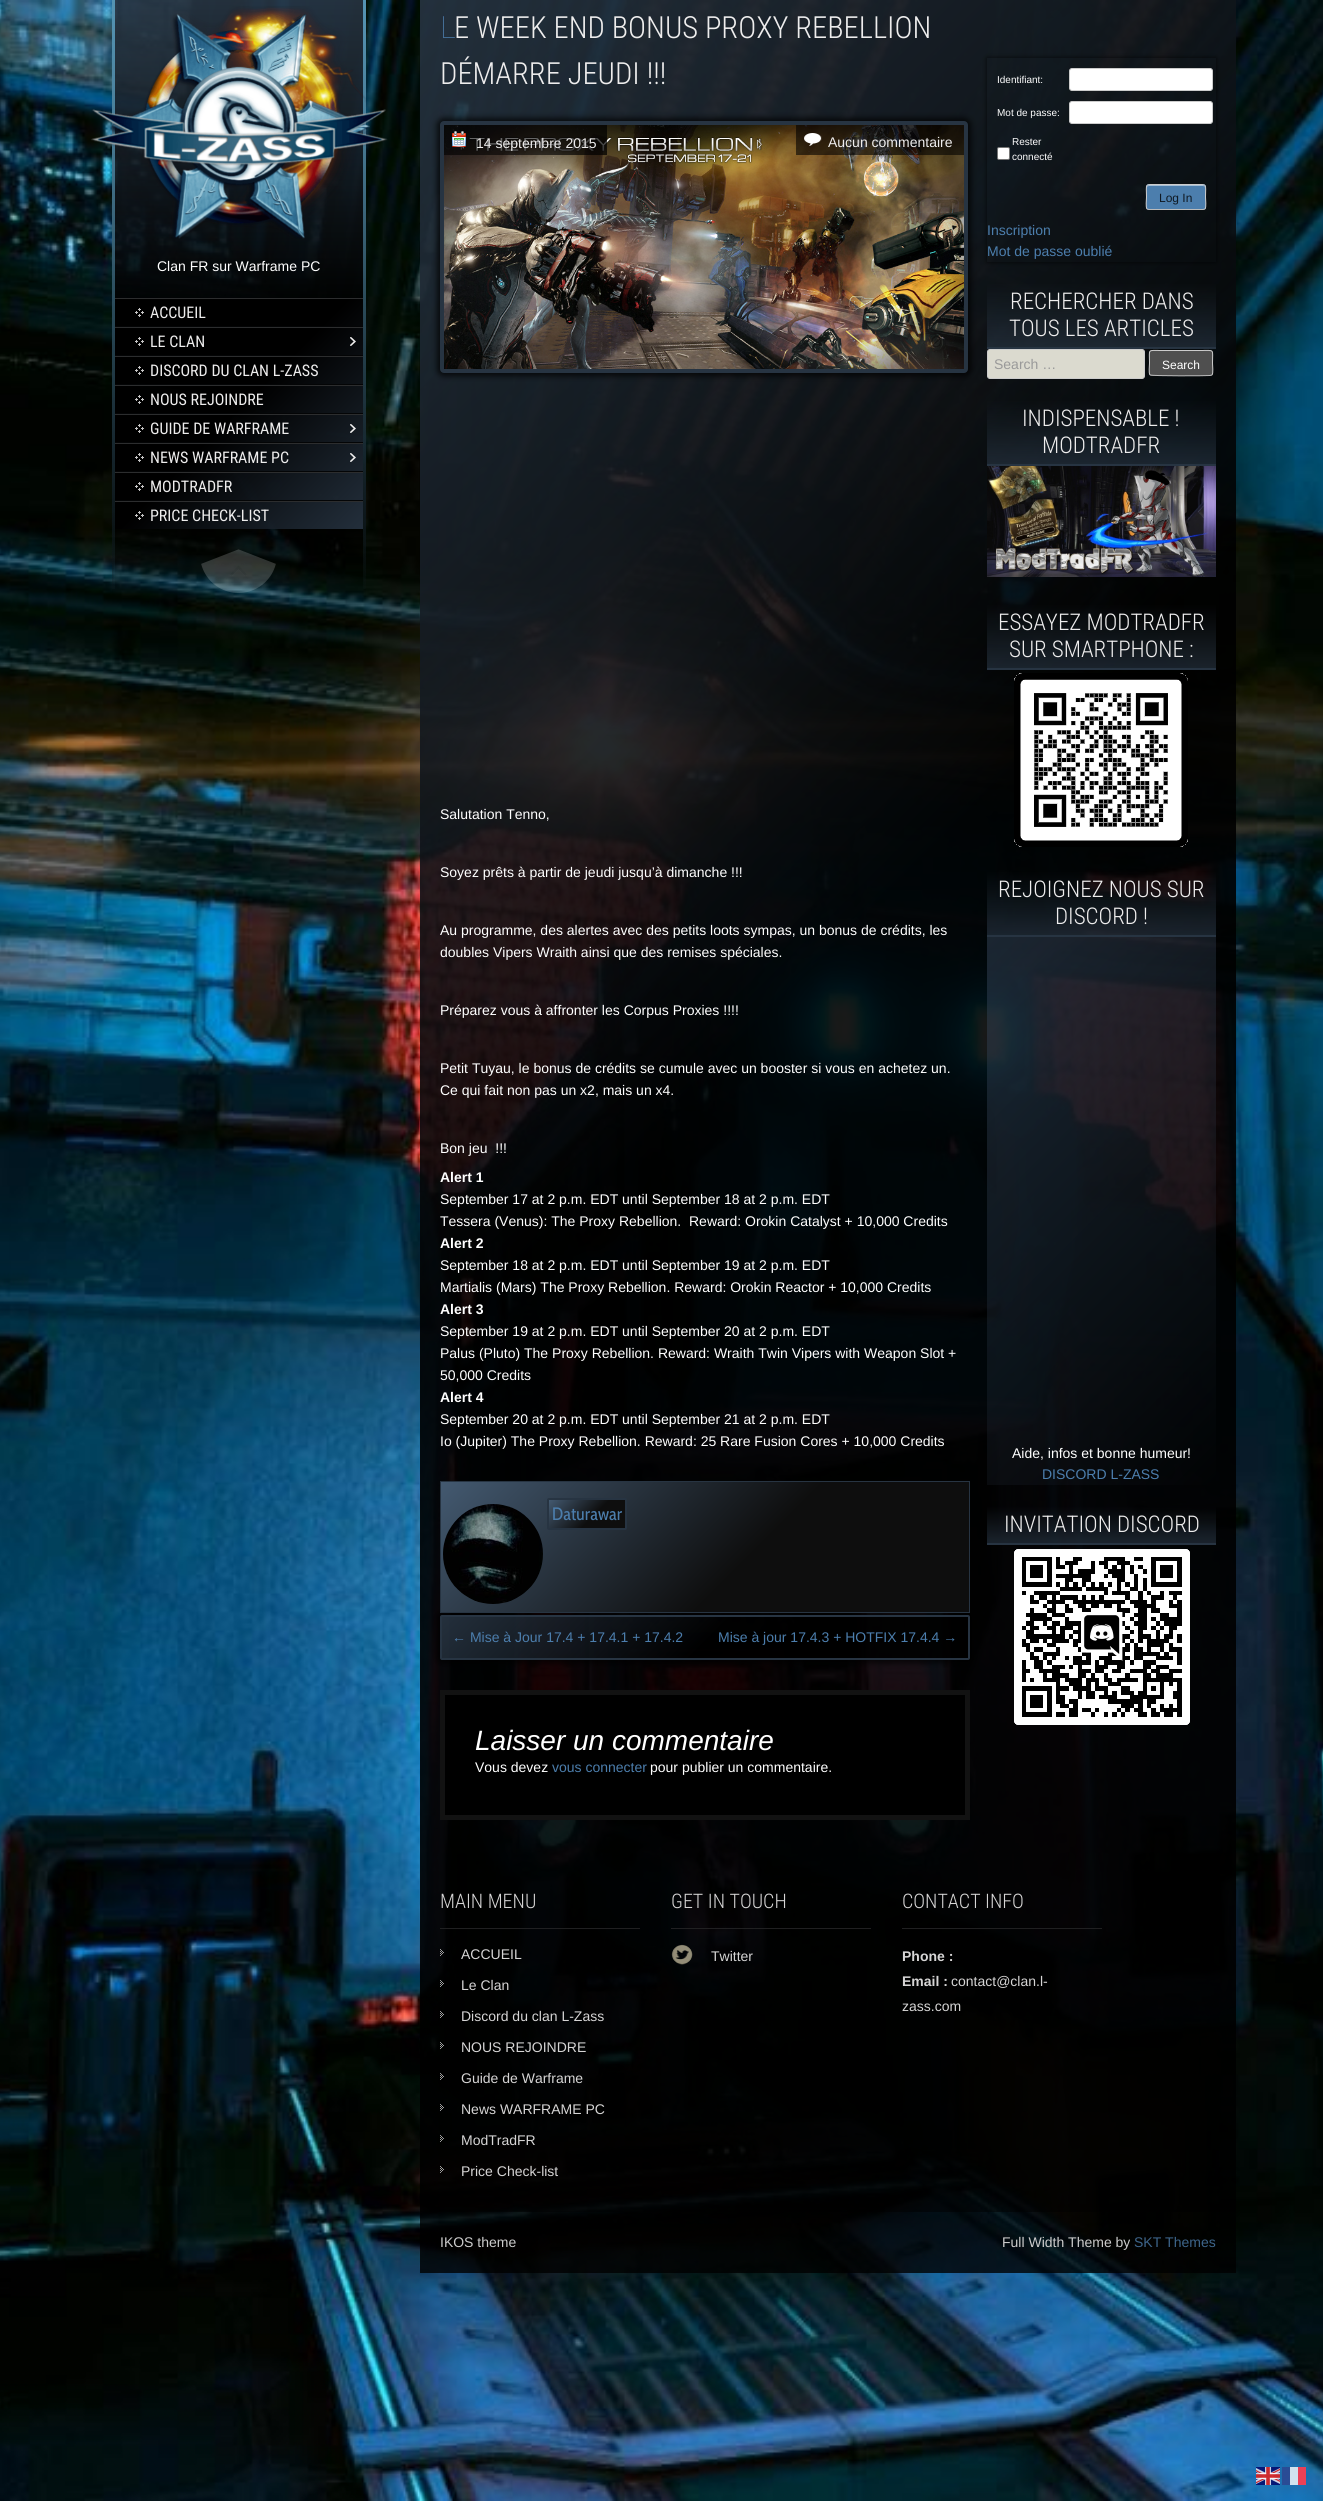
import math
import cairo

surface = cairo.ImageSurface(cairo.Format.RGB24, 1323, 2501)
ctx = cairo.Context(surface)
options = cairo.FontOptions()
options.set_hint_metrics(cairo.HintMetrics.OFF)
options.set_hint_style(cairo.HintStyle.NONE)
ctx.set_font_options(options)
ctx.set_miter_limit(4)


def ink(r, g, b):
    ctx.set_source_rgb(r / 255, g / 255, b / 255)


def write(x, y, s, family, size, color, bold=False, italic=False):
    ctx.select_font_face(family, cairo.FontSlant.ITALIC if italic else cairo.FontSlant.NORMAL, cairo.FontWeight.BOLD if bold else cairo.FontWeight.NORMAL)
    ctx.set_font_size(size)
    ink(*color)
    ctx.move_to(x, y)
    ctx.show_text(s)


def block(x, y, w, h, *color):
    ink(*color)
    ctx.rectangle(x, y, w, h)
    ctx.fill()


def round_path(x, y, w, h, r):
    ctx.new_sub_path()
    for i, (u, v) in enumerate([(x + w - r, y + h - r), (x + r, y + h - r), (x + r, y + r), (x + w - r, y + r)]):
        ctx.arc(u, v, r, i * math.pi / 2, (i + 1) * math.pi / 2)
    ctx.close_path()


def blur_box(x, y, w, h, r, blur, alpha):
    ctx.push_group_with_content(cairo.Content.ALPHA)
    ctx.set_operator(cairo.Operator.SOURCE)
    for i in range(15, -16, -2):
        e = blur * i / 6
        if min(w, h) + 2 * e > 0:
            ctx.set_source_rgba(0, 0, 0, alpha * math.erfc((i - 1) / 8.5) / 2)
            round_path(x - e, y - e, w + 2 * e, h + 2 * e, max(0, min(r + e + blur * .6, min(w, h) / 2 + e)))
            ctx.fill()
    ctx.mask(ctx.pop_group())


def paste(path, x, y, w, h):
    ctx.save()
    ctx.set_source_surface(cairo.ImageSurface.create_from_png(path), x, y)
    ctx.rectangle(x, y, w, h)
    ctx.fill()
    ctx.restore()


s1 = dict(family="Liberation Sans", size=14, color=(255, 255, 255))
s2 = dict(family="Roboto Condensed", size=16, color=(238, 237, 237))
s3 = dict(family="Noto Sans Thin", size=30.5, color=(76, 126, 173))
s4 = dict(family="Roboto Condensed Light", size=30.5, color=(238, 237, 237))
s5 = dict(family="Liberation Sans", size=14, color=(238, 237, 237))
s6 = dict(family="Liberation Sans", size=14, color=(255, 255, 255), bold=True)
s7 = dict(family="Cabin Condensed", size=18, color=(76, 126, 173))
s8 = dict(family="Liberation Sans", size=14, color=(76, 126, 173))
s9 = dict(family="Liberation Sans", size=28, color=(255, 255, 255), italic=True)
s10 = dict(family="Liberation Sans", size=10, color=(255, 255, 255))
s11 = dict(family="Liberation Sans", size=12, color=(15, 25, 35))
s12 = dict(family="Roboto Condensed Light", size=23, color=(238, 237, 237))
s13 = dict(family="Liberation Sans", size=14, color=(153, 153, 153))
s14 = dict(family="Liberation Sans", size=12, color=(255, 255, 255))
s15 = dict(family="Roboto Condensed Light", size=20, color=(214, 213, 213))
s16 = dict(family="Liberation Sans", size=14, color=(214, 213, 213))
s17 = dict(family="Liberation Sans", size=14, color=(214, 213, 213), bold=True)
s18 = dict(family="Liberation Sans", size=14, color=(204, 204, 204))
s19 = dict(family="Liberation Sans", size=14, color=(61, 101, 139))

ink(255, 255, 255)
ctx.paint()
paste("pic1.png", 0, 0, 1323, 2501)
paste("pic2.png", 112, 0, 254, 589)
paste("pic3.png", 91, 6, 297, 233)
write(157, 271, "Clan FR sur Warframe PC", **s1)
block(115, 298, 248, 1, 44, 45, 46)
block(115, 326, 248, 1, 4, 5, 6)
paste("pic4.png", 135, 308, 9, 9)
write(150, 318, "ACCUEIL", **s2)
paste("pic5.png", 350, 337, 6, 9)
block(115, 327, 248, 1, 44, 45, 46)
block(115, 355, 248, 1, 4, 5, 6)
paste("pic4.png", 135, 337, 9, 9)
write(150, 347, "LE CLAN", **s2)
block(115, 356, 248, 1, 44, 45, 46)
block(115, 384, 248, 1, 4, 5, 6)
paste("pic4.png", 135, 366, 9, 9)
write(150, 376, "DISCORD DU CLAN L-ZASS", **s2)
block(115, 385, 248, 1, 44, 45, 46)
block(115, 413, 248, 1, 4, 5, 6)
paste("pic4.png", 135, 395, 9, 9)
write(150, 405, "NOUS REJOINDRE", **s2)
paste("pic6.png", 350, 424, 6, 9)
block(115, 414, 248, 1, 44, 45, 46)
block(115, 442, 248, 1, 4, 5, 6)
paste("pic4.png", 135, 424, 9, 9)
write(150, 434, "GUIDE DE WARFRAME", **s2)
paste("pic7.png", 350, 453, 6, 9)
block(115, 443, 248, 1, 44, 45, 46)
block(115, 471, 248, 1, 4, 5, 6)
paste("pic4.png", 135, 453, 9, 9)
write(150, 463, "NEWS WARFRAME PC", **s2)
block(115, 472, 248, 1, 44, 45, 46)
block(115, 500, 248, 1, 4, 5, 6)
paste("pic4.png", 135, 482, 9, 9)
write(150, 492, "MODTRADFR", **s2)
block(115, 501, 248, 1, 44, 45, 46)
paste("pic8.png", 135, 511, 9, 9)
write(150, 521, "PRICE CHECK-LIST", **s2)
paste("pic9.png", 201, 549, 75, 44)
write(440, 38, "L", **s3)
write(454, 38, "E WEEK END BONUS PROXY REBELLION", **s4)
write(440, 84, "DÉMARRE JEUDI !!!", **s4)
ink(0, 0, 0)
blur_box(437, 118, 534, 258, 7, 3, 0.75)
round_path(442, 123, 524, 248, 2)
ink(39, 52, 66)
ctx.set_line_width(4)
ctx.stroke()
paste("pic10.png", 444, 125, 520, 244)
paste("pic11.png", 444, 125, 163, 30)
write(476, 148, "14 septembre 2015", **s5)
paste("pic12.png", 796, 125, 168, 30)
write(828, 147, "Aucun commentaire", **s5)
write(440, 819, "Salutation Tenno,", **s1)
write(440, 877, "Soyez prêts à partir de jeudi jusqu’à dimanche !!!", **s1)
write(440, 935, "Au programme, des alertes avec des petits loots sympas, un bonus de crédits, les", **s1)
write(440, 957, "doubles Vipers Wraith ainsi que des remises spéciales.", **s1)
write(440, 1015, "Préparez vous à affronter les Corpus Proxies !!!!", **s1)
write(440, 1073, "Petit Tuyau, le bonus de crédits se cumule avec un booster si vous en achetez un.", **s1)
write(440, 1095, "Ce qui fait non pas un x2, mais un x4.", **s1)
write(440, 1153, "Bon jeu  !!!", **s1)
write(440, 1182, "Alert 1", **s6)
write(440, 1204, "September 17 at 2 p.m. EDT until September 18 at 2 p.m. EDT", **s1)
write(440, 1226, "Tessera (Venus): The Proxy Rebellion.  Reward: Orokin Catalyst + 10,000 Credits", **s1)
write(440, 1248, "Alert 2", **s6)
write(440, 1270, "September 18 at 2 p.m. EDT until September 19 at 2 p.m. EDT", **s1)
write(440, 1292, "Martialis (Mars) The Proxy Rebellion. Reward: Orokin Reactor + 10,000 Credits", **s1)
write(440, 1314, "Alert 3", **s6)
write(440, 1336, "September 19 at 2 p.m. EDT until September 20 at 2 p.m. EDT", **s1)
write(440, 1358, "Palus (Pluto) The Proxy Rebellion. Reward: Wraith Twin Vipers with Weapon Slot +", **s1)
write(440, 1380, "50,000 Credits", **s1)
write(440, 1402, "Alert 4", **s6)
write(440, 1424, "September 20 at 2 p.m. EDT until September 21 at 2 p.m. EDT", **s1)
write(440, 1446, "Io (Jupiter) The Proxy Rebellion. Reward: 25 Rare Fusion Cores + 10,000 Credits", **s1)
ctx.save()
ctx.set_fill_rule(cairo.FillRule.EVEN_ODD)
ctx.new_path()
ctx.move_to(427, 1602)
ctx.line_to(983, 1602)
ctx.line_to(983, 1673)
ctx.line_to(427, 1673)
ctx.close_path()
ctx.move_to(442, 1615)
ctx.line_to(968, 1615)
ctx.curve_to(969, 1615, 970, 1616, 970, 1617)
ctx.line_to(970, 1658)
ctx.curve_to(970, 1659, 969, 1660, 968, 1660)
ctx.line_to(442, 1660)
ctx.curve_to(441, 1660, 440, 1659, 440, 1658)
ctx.line_to(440, 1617)
ctx.curve_to(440, 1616, 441, 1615, 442, 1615)
ctx.close_path()
ctx.clip()
ink(0, 0, 0)
blur_box(437, 1612, 536, 51, 5, 3, 0.75)
ctx.restore()
gradient = cairo.LinearGradient(541, 1383, 870, 1712)
gradient.add_color_stop_rgba(0, 0.263, 0.349, 0.439, 1)
gradient.add_color_stop_rgba(0.58, 0.055, 0.055, 0.055, 1)
ctx.set_source(gradient)
ctx.rectangle(441, 1482, 528, 130)
ctx.fill()
ctx.rectangle(440.5, 1481.5, 529, 131)
ink(39, 52, 66)
ctx.set_line_width(1)
ctx.stroke()
paste("pic13.png", 443, 1504, 100, 100)
gradient = cairo.LinearGradient(561, 1488, 613, 1540)
gradient.add_color_stop_rgba(0, 0.263, 0.349, 0.439, 1)
gradient.add_color_stop_rgba(0.58, 0.055, 0.055, 0.055, 1)
ctx.set_source(gradient)
ctx.rectangle(549, 1500, 76, 28)
ctx.fill()
round_path(548, 1499, 78, 30, 1)
ink(39, 52, 66)
ctx.set_line_width(2)
ctx.stroke()
write(552, 1520, "Daturawar", **s7)
round_path(441, 1616, 528, 43, 1)
ink(39, 52, 66)
ctx.stroke()
write(452, 1642, "← Mise à Jour 17.4 + 17.4.1 + 17.4.2", **s8)
write(718, 1642, "Mise à jour 17.4.3 + HOTFIX 17.4.4 →", **s8)
ink(0, 0, 0)
ctx.rectangle(442.5, 1692.5, 525, 125)
ctx.fill_preserve()
ink(18, 18, 18)
ctx.set_line_width(5)
ctx.stroke()
write(475, 1750, "Laisser un commentaire", **s9)
write(475, 1772, "Vous devez", **s1)
write(552, 1772, "vous connecter", **s8)
write(650, 1772, "pour publier un commentaire.", **s1)
ctx.save()
ctx.set_fill_rule(cairo.FillRule.EVEN_ODD)
ctx.new_path()
ctx.move_to(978, 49)
ctx.line_to(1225, 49)
ctx.line_to(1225, 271)
ctx.line_to(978, 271)
ctx.close_path()
ctx.move_to(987, 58)
ctx.line_to(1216, 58)
ctx.line_to(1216, 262)
ctx.line_to(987, 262)
ctx.close_path()
ctx.clip()
ink(0, 0, 0)
blur_box(987, 58, 229, 204, 0, 2.5, 0.75)
ctx.restore()
write(997, 83, "Identifiant:", **s10)
round_path(1069.5, 68.5, 143, 22, 2.5)
ctx.fill_preserve()
ink(204, 204, 204)
ctx.set_line_width(1)
ctx.stroke()
write(997, 116, "Mot de passe:", **s10)
round_path(1069.5, 101.5, 143, 22, 2.5)
ctx.fill_preserve()
ink(204, 204, 204)
ctx.stroke()
ink(255, 255, 255)
round_path(997.5, 147.5, 12, 12, 1.5)
ctx.fill_preserve()
ink(118, 118, 118)
ctx.stroke()
write(1012, 145, "Rester", **s10)
write(1012, 160, "connecté", **s10)
ink(76, 126, 173)
round_path(1146, 184, 60, 26, 3)
ctx.fill()
ink(166, 191, 214)
ctx.new_path()
ctx.move_to(1149, 186)
ctx.line_to(1203, 186)
ctx.curve_to(1204, 186, 1205, 187, 1205, 188)
ctx.curve_to(1205, 183, 1198, 185, 1194, 185)
ctx.line_to(1158, 185)
ctx.curve_to(1154, 185, 1147, 183, 1147, 188)
ctx.curve_to(1147, 187, 1148, 186, 1149, 186)
ctx.close_path()
ctx.fill()
ctx.new_path()
ctx.move_to(1205, 209)
ctx.line_to(1203, 209.5)
ctx.line_to(1149, 209.5)
ctx.line_to(1147, 209)
ink(187, 187, 187)
ctx.stroke()
ctx.new_path()
ctx.move_to(1147, 209)
ctx.curve_to(1145.5, 207, 1146.5, 199.5, 1146.5, 197)
ctx.curve_to(1146.5, 183, 1144, 184.5, 1158, 184.5)
ctx.line_to(1194, 184.5)
ctx.curve_to(1208, 184.5, 1205.5, 183, 1205.5, 197)
ctx.curve_to(1205.5, 199.5, 1206.5, 207, 1205, 209)
ink(204, 204, 204)
ctx.stroke()
write(1159, 202, "Log In", **s11)
write(987, 235, "Inscription", **s8)
write(987, 256, "Mot de passe oublié", **s8)
block(987, 347, 229, 2, 39, 52, 66)
write(1010, 309, "RECHERCHER DANS", **s12)
write(1009, 336, "TOUS LES ARTICLES", **s12)
ink(219, 218, 207)
round_path(987.5, 349.5, 157, 29, 2.5)
ctx.fill_preserve()
ink(204, 204, 204)
ctx.stroke()
write(994, 369, "Search …", **s13)
ink(79, 79, 79)
round_path(1149, 350, 64, 26, 3)
ctx.fill()
ctx.new_path()
ctx.move_to(1212, 375)
ctx.line_to(1210, 375.5)
ctx.curve_to(1205, 376, 1151.5, 376, 1150.5, 375)
ctx.line_to(1150, 375)
ink(187, 187, 187)
ctx.stroke()
ctx.new_path()
ctx.move_to(1150, 375)
ctx.curve_to(1148.5, 373, 1149.5, 365.5, 1149.5, 363)
ctx.curve_to(1149.5, 348.5, 1147, 350.5, 1161.5, 350.5)
ctx.line_to(1200.5, 350.5)
ctx.curve_to(1215, 350.5, 1212.5, 348.5, 1212.5, 363)
ctx.curve_to(1212.5, 365.5, 1213.5, 373, 1212, 375)
ink(204, 204, 204)
ctx.stroke()
write(1162, 369, "Search", **s14)
block(987, 464, 229, 2, 39, 52, 66)
write(1022, 426, "INDISPENSABLE !", **s12)
write(1042, 453, "MODTRADFR", **s12)
paste("pic14.png", 987, 466, 229, 111)
block(987, 668, 229, 2, 39, 52, 66)
write(998, 630, "ESSAYEZ MODTRADFR", **s12)
write(1009, 657, "SUR SMARTPHONE :", **s12)
paste("pic15.png", 1014, 673, 174, 174)
block(987, 935, 229, 2, 39, 52, 66)
write(998, 897, "REJOIGNEZ NOUS SUR", **s12)
write(1055, 924, "DISCORD !", **s12)
write(1012, 1458, "Aide, infos et bonne humeur!", **s1)
write(1042, 1479, "DISCORD L-ZASS", **s8)
block(987, 1543, 229, 2, 39, 52, 66)
write(1004, 1532, "INVITATION DISCORD", **s12)
paste("pic16.png", 1014, 1549, 176, 176)
ctx.set_source_rgba(0, 0, 0, 0.9)
ctx.rectangle(420, 1870, 816, 342)
ctx.fill()
ctx.set_source_rgba(0.141, 0.141, 0.145, 0.9)
ctx.rectangle(440, 1928, 200, 1)
ctx.fill()
write(440, 1908, "MAIN MENU", **s15)
paste("pic17.png", 440, 1949, 4, 7)
write(461, 1959, "ACCUEIL", **s16)
paste("pic18.png", 440, 1980, 4, 7)
write(461, 1990, "Le Clan", **s16)
paste("pic19.png", 440, 2011, 4, 7)
write(461, 2021, "Discord du clan L-Zass", **s16)
paste("pic19.png", 440, 2042, 4, 7)
write(461, 2052, "NOUS REJOINDRE", **s16)
paste("pic20.png", 440, 2073, 4, 7)
write(461, 2083, "Guide de Warframe", **s16)
paste("pic21.png", 440, 2104, 4, 7)
write(461, 2114, "News WARFRAME PC", **s16)
paste("pic22.png", 440, 2135, 4, 7)
write(461, 2145, "ModTradFR", **s16)
paste("pic23.png", 440, 2166, 4, 7)
write(461, 2176, "Price Check-list", **s16)
ctx.set_source_rgba(0.141, 0.141, 0.145, 0.9)
ctx.rectangle(671, 1928, 200, 1)
ctx.fill()
write(671, 1908, "GET IN TOUCH", **s15)
paste("pic24.png", 671, 1944, 22, 21)
write(711, 1961, "Twitter", **s16)
ctx.set_source_rgba(0.141, 0.141, 0.145, 0.9)
ctx.rectangle(902, 1928, 200, 1)
ctx.fill()
write(902, 1908, "CONTACT INFO", **s15)
write(902, 1961, "Phone :", **s17)
write(902, 1986, "Email :", **s17)
write(951, 1986, "contact@clan.l-", **s16)
write(902, 2011, "zass.com", **s16)
ctx.set_source_rgba(0, 0, 0, 0.8)
ctx.rectangle(420, 2212, 816, 61)
ctx.fill()
write(440, 2247, "IKOS theme", **s18)
write(1002, 2247, "Full Width Theme by", **s18)
write(1134, 2247, "SKT Themes", **s19)
paste("pic25.png", 1256, 2467, 24, 18)
block(1282, 2467, 8, 18, 42, 76, 149)
ctx.set_source_rgba(1, 1, 1, 0.8)
ctx.rectangle(1290, 2467, 8, 18)
ctx.fill()
block(1298, 2467, 8, 18, 236, 64, 86)
surface.write_to_png("screenshot.png")
